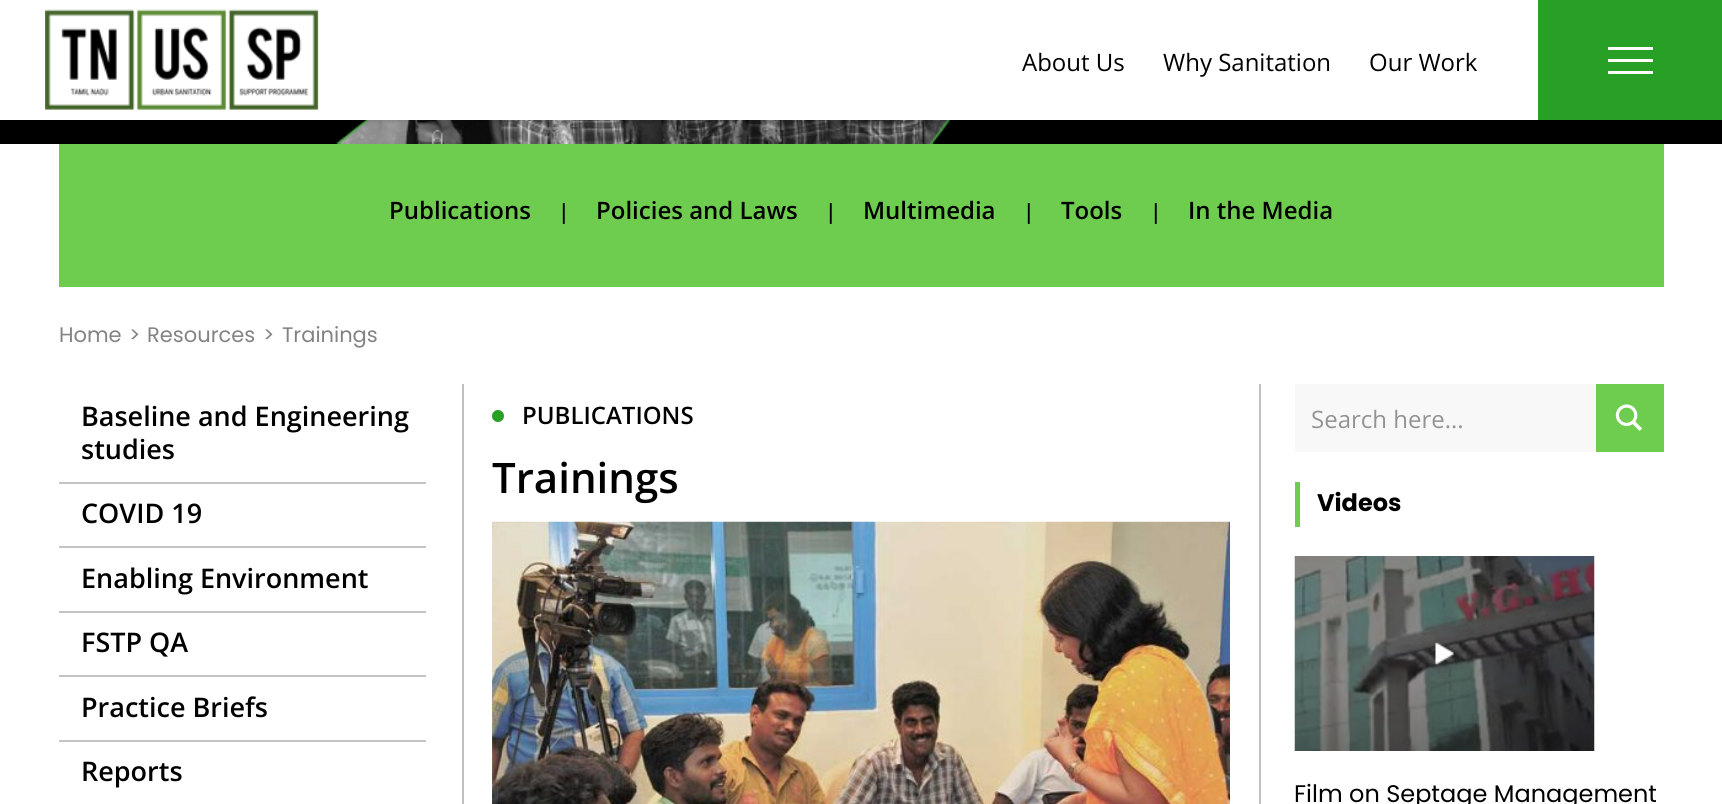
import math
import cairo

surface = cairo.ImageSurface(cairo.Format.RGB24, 1722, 804)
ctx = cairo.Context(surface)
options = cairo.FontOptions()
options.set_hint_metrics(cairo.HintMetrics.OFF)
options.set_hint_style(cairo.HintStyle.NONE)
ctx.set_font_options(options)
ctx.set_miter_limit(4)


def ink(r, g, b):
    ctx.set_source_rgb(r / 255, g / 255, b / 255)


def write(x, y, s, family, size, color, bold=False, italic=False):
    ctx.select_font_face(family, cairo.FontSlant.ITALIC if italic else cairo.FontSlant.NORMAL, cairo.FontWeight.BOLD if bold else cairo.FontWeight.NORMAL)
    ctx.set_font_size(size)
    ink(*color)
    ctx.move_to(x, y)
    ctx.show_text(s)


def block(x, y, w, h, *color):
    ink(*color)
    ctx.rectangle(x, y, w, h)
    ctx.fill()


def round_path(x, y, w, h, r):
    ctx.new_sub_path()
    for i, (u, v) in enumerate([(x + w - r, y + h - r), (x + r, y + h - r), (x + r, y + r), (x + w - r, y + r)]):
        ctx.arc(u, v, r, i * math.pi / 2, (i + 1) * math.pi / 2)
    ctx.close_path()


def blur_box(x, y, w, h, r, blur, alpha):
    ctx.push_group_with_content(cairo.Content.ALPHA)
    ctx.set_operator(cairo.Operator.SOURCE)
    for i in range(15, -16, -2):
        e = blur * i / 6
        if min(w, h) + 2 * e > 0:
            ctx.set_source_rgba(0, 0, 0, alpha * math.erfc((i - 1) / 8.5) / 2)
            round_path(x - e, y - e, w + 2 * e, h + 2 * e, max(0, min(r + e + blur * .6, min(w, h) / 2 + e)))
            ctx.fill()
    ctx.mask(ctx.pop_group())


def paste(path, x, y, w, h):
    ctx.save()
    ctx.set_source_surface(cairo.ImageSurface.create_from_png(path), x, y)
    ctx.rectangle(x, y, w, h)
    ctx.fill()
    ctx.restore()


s1 = dict(family="Open Sans", size=24, color=(0, 0, 0))
s2 = dict(family="Open Sans SemiBold", size=24, color=(0, 0, 0))
s3 = dict(family="Open Sans SemiBold", size=21, color=(0, 0, 0))
s4 = dict(family="Poppins", size=21, color=(131, 131, 131))
s5 = dict(family="Open Sans SemiBold", size=27, color=(0, 0, 0))
s6 = dict(family="Open Sans SemiBold", size=42, color=(0, 0, 0))
s7 = dict(family="Open Sans", size=24, color=(147, 147, 147))
s8 = dict(family="Poppins", size=24, color=(0, 0, 0), bold=True)
s9 = dict(family="Poppins", size=24, color=(0, 0, 0))

ink(255, 255, 255)
ctx.paint()
paste("pic2.png", 0, 120, 1722, 24)
ink(0, 0, 0)
blur_box(0, 2, 1722, 120, 0, 2, 0.12)
block(0, 0, 1538, 120, 255, 255, 255)
paste("pic1.png", 45, 9, 274, 101)
write(1022, 71, "About Us", **s1)
write(1163, 71, "Why Sanitation", **s1)
write(1369, 71, "Our Work", **s1)
block(1538, 0, 184, 120, 40, 160, 37)
block(1608, 47, 45, 3, 255, 255, 255)
block(1608, 59, 45, 3, 255, 255, 255)
block(1608, 71, 45, 3, 255, 255, 255)
block(59, 144, 1605, 143, 110, 204, 78)
write(389, 219, "Publications", **s2)
write(558, 219, "|", **s3)
write(596, 219, "Policies and Laws", **s2)
write(825, 219, "|", **s3)
write(863, 219, "Multimedia", **s2)
write(1023, 219, "|", **s3)
write(1061, 219, "Tools", **s2)
write(1150, 219, "|", **s3)
write(1188, 219, "In the Media", **s2)
write(59, 342, "Home", **s4)
write(129, 342, ">", **s4)
write(147, 342, "Resources", **s4)
write(263, 342, ">", **s4)
write(282, 342, "Trainings", **s4)
write(81, 426, "Baseline and Engineering", **s5)
write(81, 459, "studies", **s5)
block(59, 482, 367, 2, 196, 196, 196)
write(81, 523, "COVID 19", **s5)
block(59, 546, 367, 2, 196, 196, 196)
write(81, 588, "Enabling Environment", **s5)
block(59, 611, 367, 2, 196, 196, 196)
write(81, 652, "FSTP QA", **s5)
block(59, 675, 367, 2, 196, 196, 196)
write(81, 717, "Practice Briefs", **s5)
block(59, 740, 367, 2, 196, 196, 196)
write(81, 781, "Reports", **s5)
block(462, 384, 2, 420, 192, 192, 192)
ink(40, 160, 37)
ctx.new_path()
ctx.arc(498, 416, 6, 0, 2 * math.pi)
ctx.fill()
write(522, 424, "PUBLICATIONS", **s2)
write(492, 493, "Trainings", **s6)
paste("pic3.png", 492, 521, 738, 283)
block(1259, 384, 2, 420, 192, 192, 192)
block(1295, 384, 301, 68, 248, 248, 248)
write(1311, 428, "Search here...", **s7)
block(1596, 384, 68, 68, 110, 204, 78)
paste("pic4.png", 1615, 404, 28, 27)
block(1295, 482, 5, 45, 110, 204, 78)
write(1317, 511, "Videos", **s8)
paste("pic5.png", 1294, 556, 301, 195)
write(1294, 802, "Film on Septage Management", **s9)
surface.write_to_png("screenshot.png")
